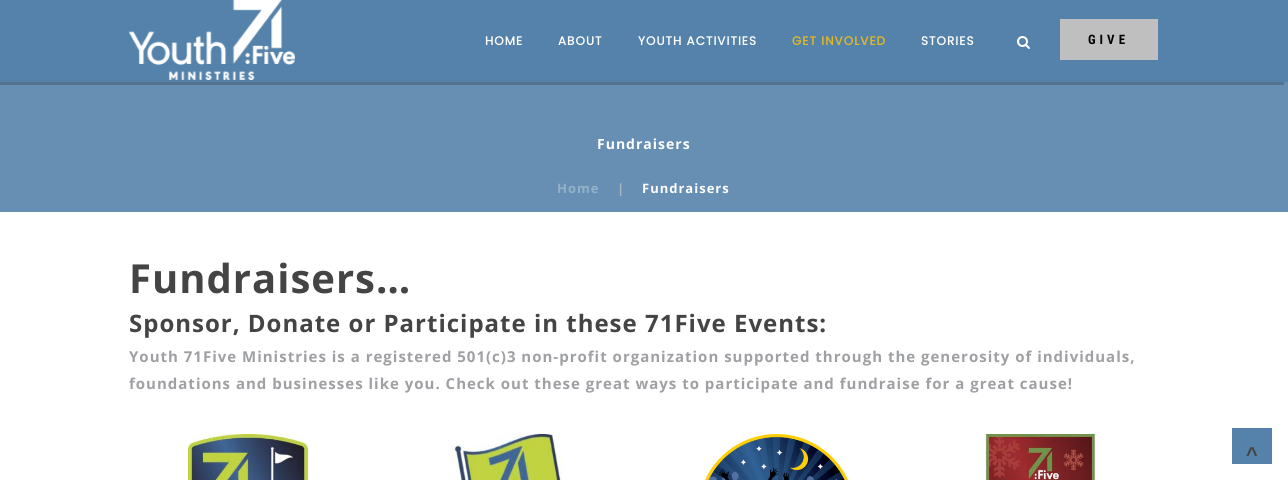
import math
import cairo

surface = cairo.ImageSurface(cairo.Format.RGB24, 1288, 480)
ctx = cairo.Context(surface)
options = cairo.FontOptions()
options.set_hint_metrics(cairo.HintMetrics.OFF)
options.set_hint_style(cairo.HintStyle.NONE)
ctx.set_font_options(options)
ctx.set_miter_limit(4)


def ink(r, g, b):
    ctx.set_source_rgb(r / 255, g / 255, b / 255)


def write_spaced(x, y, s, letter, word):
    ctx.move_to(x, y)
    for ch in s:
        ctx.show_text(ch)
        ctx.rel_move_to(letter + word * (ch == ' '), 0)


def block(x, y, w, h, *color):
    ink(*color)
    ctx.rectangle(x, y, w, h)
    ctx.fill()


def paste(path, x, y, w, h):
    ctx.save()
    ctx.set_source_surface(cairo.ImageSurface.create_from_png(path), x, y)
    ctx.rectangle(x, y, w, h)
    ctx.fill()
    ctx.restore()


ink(255, 255, 255)
ctx.paint()
block(0, 82, 1288, 130, 102, 143, 179)
ink(82, 114, 143)
ctx.new_path()
ctx.move_to(-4, 3)
ctx.line_to(-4, 85)
ctx.line_to(1284, 85)
ctx.line_to(1284, 82)
ctx.line_to(0, 82)
ctx.line_to(0, 3)
ctx.close_path()
ctx.fill()
block(0, 0, 1288, 82, 85, 130, 170)
paste("pic1.png", 128, 0, 167, 80)
ctx.select_font_face("Poppins", cairo.FontSlant.NORMAL, cairo.FontWeight.BOLD)
ctx.set_font_size(12)
ink(255, 255, 255)
write_spaced(485, 45, "HOME", 1, 0)
write_spaced(558, 45, "ABOUT", 1, 0)
write_spaced(638, 45, "YOUTH ACTIVITIES", 1, 0)
ink(227, 185, 34)
write_spaced(792, 45, "GET INVOLVED", 1, 0)
ink(255, 255, 255)
write_spaced(921, 45, "STORIES", 1, 0)
paste("pic2.png", 1017, 36, 13, 13)
block(1060, 19, 98, 41, 191, 191, 191)
ctx.select_font_face("Roboto Condensed", cairo.FontSlant.NORMAL, cairo.FontWeight.BOLD)
ctx.set_font_size(13)
ink(0, 0, 0)
write_spaced(1088, 44, "GIVE", 4, 0)
ctx.select_font_face("Open Sans", cairo.FontSlant.NORMAL, cairo.FontWeight.BOLD)
ctx.set_font_size(14)
ink(255, 255, 255)
write_spaced(597, 149, "Fundraisers", 1, 0)
ctx.set_font_size(13)
ink(148, 177, 202)
write_spaced(557, 193, "Home", 1, 0)
ink(170, 180, 191)
write_spaced(617, 193, "|", 1, 0)
ink(255, 255, 255)
write_spaced(642, 193, "Fundraisers", 1, 0)
ctx.set_font_size(40)
ink(68, 68, 68)
write_spaced(129, 293, "Fundraisers…", 1, 0)
ctx.set_font_size(24)
write_spaced(129, 332, "Sponsor, Donate or Participate in these 71Five Events:", 1, 0)
ctx.set_font_size(15)
ink(159, 160, 163)
write_spaced(129, 362, "Youth 71Five Ministries is a registered 501(c)3 non-profit organization supported through the generosity of individuals,", 1, 0)
write_spaced(129, 389, "foundations and businesses like you. Check out these great ways to participate and fundraise for a great cause!", 1, 0)
paste("pic3.png", 188, 434, 120, 46)
paste("pic4.png", 452, 434, 111, 46)
paste("pic5.png", 705, 434, 143, 46)
paste("pic6.png", 984, 434, 112, 46)
block(1232, 428, 40, 36, 85, 130, 170)
ctx.select_font_face("Liberation Sans", cairo.FontSlant.NORMAL, cairo.FontWeight.BOLD)
ctx.set_font_size(20)
ink(68, 68, 68)
write_spaced(1246, 461, "^", 1, 0)
surface.write_to_png("screenshot.png")
